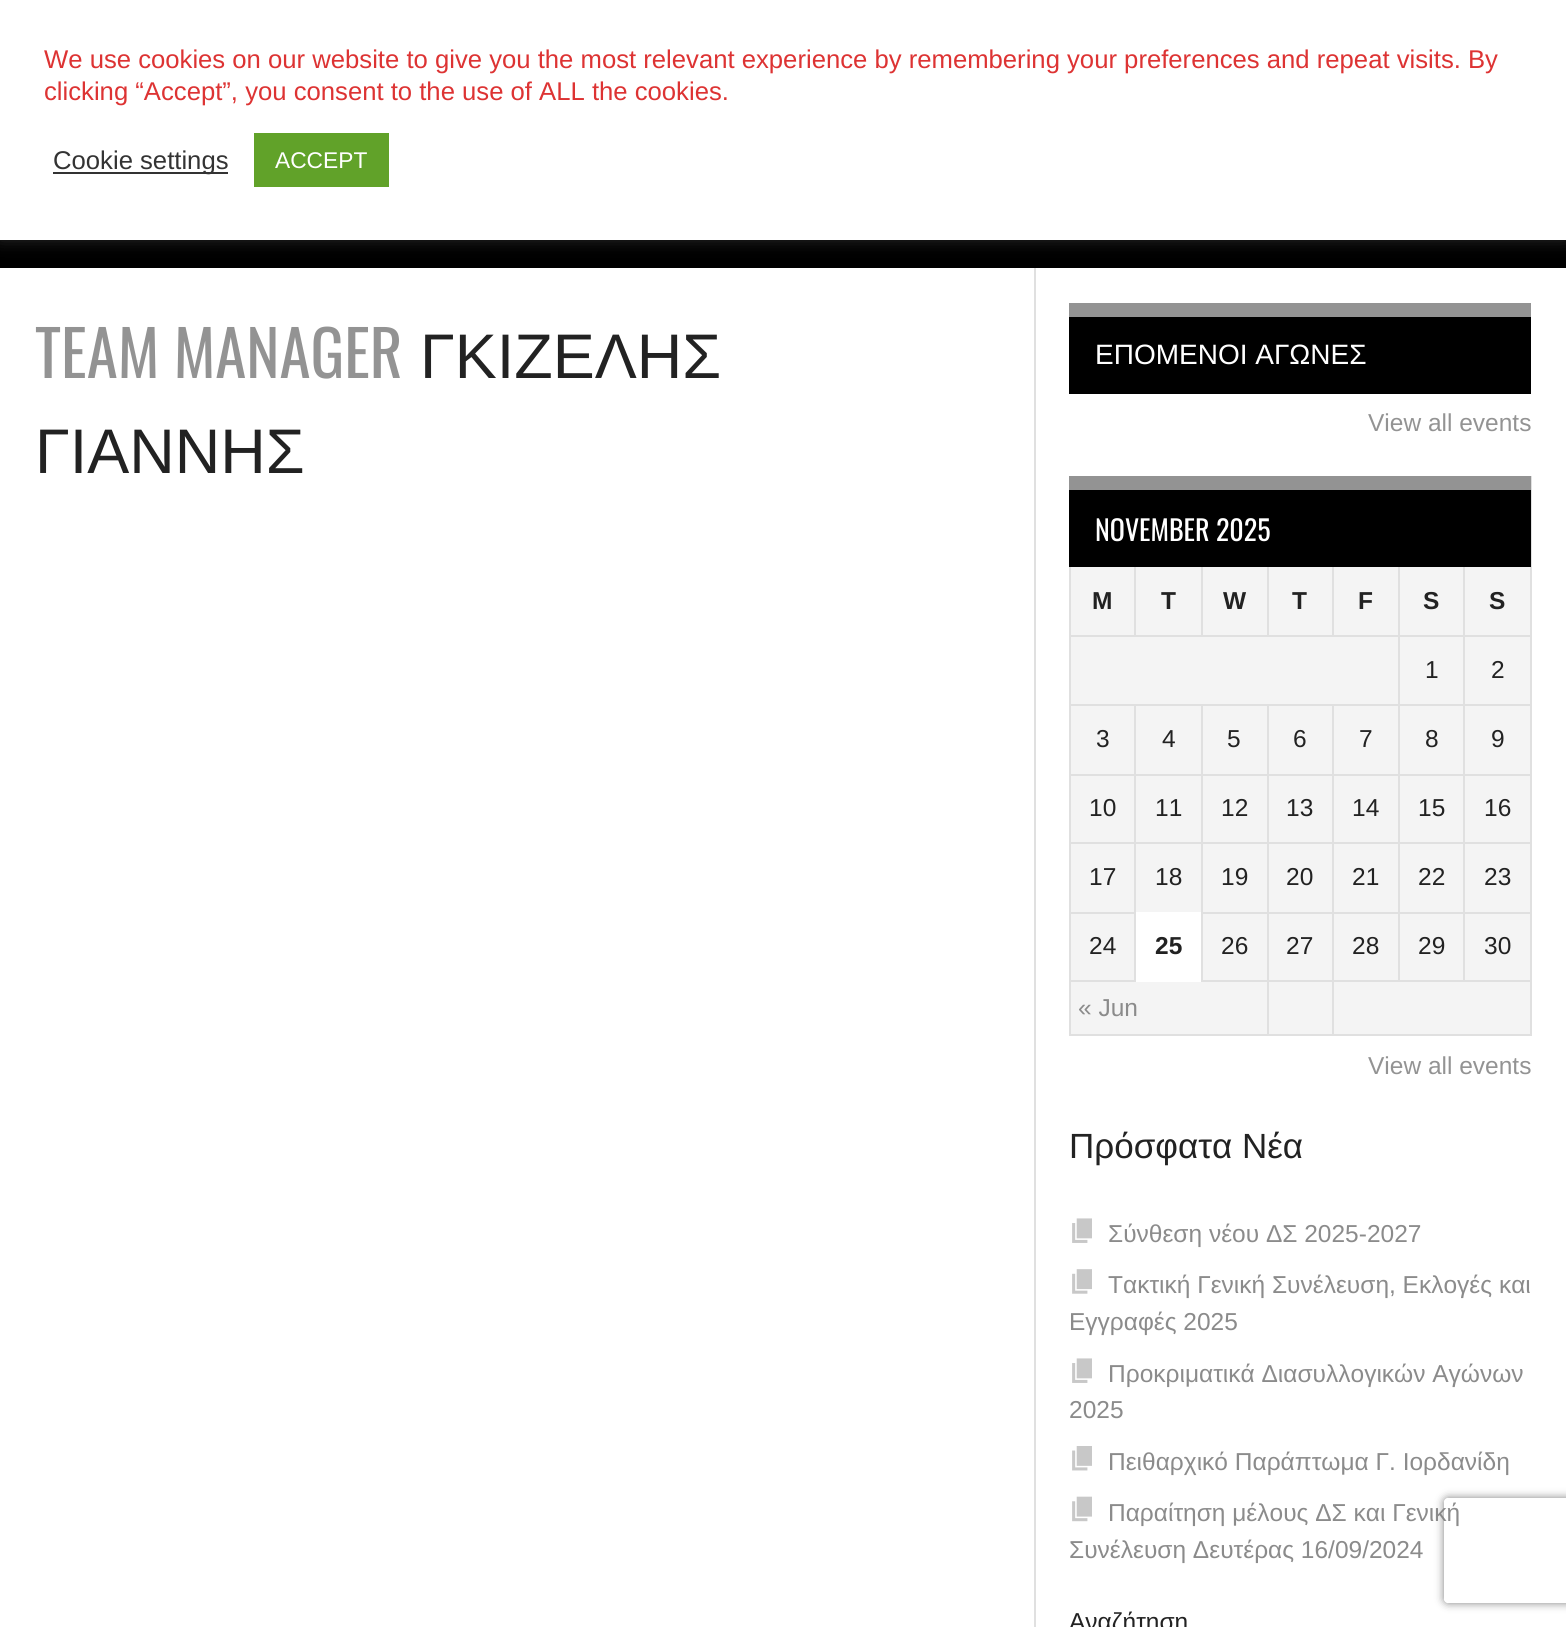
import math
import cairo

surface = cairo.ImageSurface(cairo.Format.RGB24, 1566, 1627)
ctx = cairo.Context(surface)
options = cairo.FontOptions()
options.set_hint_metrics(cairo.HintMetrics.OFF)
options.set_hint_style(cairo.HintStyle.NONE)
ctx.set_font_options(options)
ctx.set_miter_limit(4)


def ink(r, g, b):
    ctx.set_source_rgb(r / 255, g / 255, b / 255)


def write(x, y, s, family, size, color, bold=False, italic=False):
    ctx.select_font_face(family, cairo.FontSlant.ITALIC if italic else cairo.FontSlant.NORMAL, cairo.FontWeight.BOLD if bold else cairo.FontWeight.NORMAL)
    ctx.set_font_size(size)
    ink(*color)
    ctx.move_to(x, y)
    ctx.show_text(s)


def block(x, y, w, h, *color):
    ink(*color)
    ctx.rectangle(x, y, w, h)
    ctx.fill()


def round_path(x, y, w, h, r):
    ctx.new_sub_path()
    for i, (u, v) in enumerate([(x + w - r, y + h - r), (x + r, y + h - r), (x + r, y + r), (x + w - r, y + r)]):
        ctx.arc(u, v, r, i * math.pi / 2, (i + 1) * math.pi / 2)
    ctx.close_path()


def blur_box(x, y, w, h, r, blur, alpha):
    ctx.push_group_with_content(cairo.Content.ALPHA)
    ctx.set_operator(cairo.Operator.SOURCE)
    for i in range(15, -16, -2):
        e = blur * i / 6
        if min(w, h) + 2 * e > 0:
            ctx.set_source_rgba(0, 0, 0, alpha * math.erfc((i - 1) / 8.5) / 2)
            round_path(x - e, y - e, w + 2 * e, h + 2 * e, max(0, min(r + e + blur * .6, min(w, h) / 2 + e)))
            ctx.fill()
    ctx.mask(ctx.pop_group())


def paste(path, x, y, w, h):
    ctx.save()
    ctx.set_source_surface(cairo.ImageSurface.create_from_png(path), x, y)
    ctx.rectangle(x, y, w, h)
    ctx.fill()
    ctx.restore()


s1 = dict(family="Liberation Sans", size=25.67, color=(221, 51, 51))
s2 = dict(family="Liberation Sans", size=25.67, color=(51, 51, 51))
s3 = dict(family="Liberation Sans", size=22.75, color=(255, 255, 255))
s4 = dict(family="Oswald", size=63, color=(147, 147, 147))
s5 = dict(family="Liberation Sans", size=63, color=(34, 34, 34))
s6 = dict(family="Liberation Sans", size=28, color=(255, 255, 255))
s7 = dict(family="Liberation Sans", size=24.5, color=(147, 147, 147))
s8 = dict(family="Oswald", size=28, color=(255, 255, 255))
s9 = dict(family="Liberation Sans", size=24.5, color=(34, 34, 34), bold=True)
s10 = dict(family="Liberation Sans", size=24.5, color=(34, 34, 34))
s11 = dict(family="Liberation Sans", size=24.5, color=(139, 139, 139))
s12 = dict(family="Liberation Sans", size=35, color=(34, 34, 34))

ink(255, 255, 255)
ctx.paint()
block(0, 240, 1566, 28, 0, 0, 0)
ink(172, 171, 171)
blur_box(0, -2, 1566, 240, 0, 9, 0.3)
block(0, 0, 1566, 240, 255, 255, 255)
write(44, 68, "We use cookies on our website to give you the most relevant experience by remembering your preferences and repeat visits. By", **s1)
write(44, 100, "clicking “Accept”, you consent to the use of ALL the cookies.", **s1)
block(53, 172, 175, 2, 51, 51, 51)
write(53, 169, "Cookie settings", **s2)
block(254, 133, 135, 54, 97, 162, 41)
write(275, 168, "ACCEPT", **s3)
write(35, 378, "TEAM MANAGER", **s4)
write(420, 378, "ΓΚΙΖΕΛΗΣ", **s5)
write(35, 473, "ΓΙΑΝΝΗΣ", **s5)
block(1034, 268, 2, 1359, 224, 224, 224)
block(1069, 317, 462, 77, 0, 0, 0)
block(1069, 303, 462, 14, 147, 147, 147)
write(1095, 364, "ΕΠΟΜΕΝΟΙ ΑΓΩΝΕΣ", **s6)
write(1368, 431, "View all events", **s7)
block(1071, 567, 459, 467, 244, 244, 244)
block(1530, 476, 2, 560, 224, 224, 224)
block(1069, 1034, 462, 2, 224, 224, 224)
block(1069, 567, 2, 469, 224, 224, 224)
block(1463, 635, 68, 2, 224, 224, 224)
block(1463, 704, 68, 2, 224, 224, 224)
block(1463, 774, 68, 2, 224, 224, 224)
block(1463, 842, 68, 2, 224, 224, 224)
block(1463, 912, 68, 2, 224, 224, 224)
block(1463, 980, 68, 2, 224, 224, 224)
block(1463, 912, 2, 70, 224, 224, 224)
block(1398, 912, 67, 2, 224, 224, 224)
block(1463, 842, 2, 72, 224, 224, 224)
block(1398, 842, 67, 2, 224, 224, 224)
block(1463, 774, 2, 70, 224, 224, 224)
block(1398, 774, 67, 2, 224, 224, 224)
block(1463, 704, 2, 71, 224, 224, 224)
block(1398, 704, 67, 2, 224, 224, 224)
block(1463, 635, 2, 70, 224, 224, 224)
block(1398, 635, 67, 2, 224, 224, 224)
block(1398, 980, 67, 2, 224, 224, 224)
block(1398, 912, 2, 70, 224, 224, 224)
block(1332, 912, 68, 2, 224, 224, 224)
block(1398, 842, 2, 72, 224, 224, 224)
block(1332, 842, 68, 2, 224, 224, 224)
block(1398, 774, 2, 70, 224, 224, 224)
block(1332, 774, 68, 2, 224, 224, 224)
block(1398, 704, 2, 71, 224, 224, 224)
block(1332, 704, 68, 2, 224, 224, 224)
block(1398, 635, 2, 70, 224, 224, 224)
block(1069, 635, 331, 2, 224, 224, 224)
block(1134, 565, 2, 72, 224, 224, 224)
block(1201, 565, 2, 72, 224, 224, 224)
block(1267, 565, 2, 72, 224, 224, 224)
block(1332, 565, 2, 72, 224, 224, 224)
block(1398, 565, 2, 72, 224, 224, 224)
block(1463, 565, 2, 72, 224, 224, 224)
block(1069, 490, 462, 77, 0, 0, 0)
block(1069, 476, 462, 14, 147, 147, 147)
write(1095, 541, "NOVEMBER 2025", **s8)
write(1092, 609, "M", **s9)
write(1161, 609, "T", **s9)
write(1223, 609, "W", **s9)
write(1292, 609, "T", **s9)
write(1358, 609, "F", **s9)
write(1423, 609, "S", **s9)
write(1489, 609, "S", **s9)
write(1425, 678, "1", **s10)
write(1491, 678, "2", **s10)
block(1332, 980, 68, 2, 224, 224, 224)
block(1332, 912, 2, 70, 224, 224, 224)
block(1267, 912, 67, 2, 224, 224, 224)
block(1332, 842, 2, 72, 224, 224, 224)
block(1267, 842, 67, 2, 224, 224, 224)
block(1332, 774, 2, 70, 224, 224, 224)
block(1267, 774, 67, 2, 224, 224, 224)
block(1332, 704, 2, 71, 224, 224, 224)
block(1267, 704, 67, 2, 224, 224, 224)
block(1267, 980, 67, 2, 224, 224, 224)
block(1267, 912, 2, 70, 224, 224, 224)
block(1201, 912, 68, 2, 224, 224, 224)
block(1267, 842, 2, 72, 224, 224, 224)
block(1201, 842, 68, 2, 224, 224, 224)
block(1267, 774, 2, 70, 224, 224, 224)
block(1201, 774, 68, 2, 224, 224, 224)
block(1267, 704, 2, 71, 224, 224, 224)
block(1201, 704, 68, 2, 224, 224, 224)
block(1201, 980, 68, 2, 224, 224, 224)
block(1201, 912, 2, 70, 224, 224, 224)
block(1201, 842, 2, 72, 224, 224, 224)
block(1134, 842, 68, 2, 224, 224, 224)
block(1201, 774, 2, 70, 224, 224, 224)
block(1134, 774, 68, 2, 224, 224, 224)
block(1201, 704, 2, 71, 224, 224, 224)
block(1134, 704, 68, 2, 224, 224, 224)
block(1134, 912, 2, 70, 224, 224, 224)
block(1069, 912, 67, 2, 224, 224, 224)
block(1134, 842, 2, 72, 224, 224, 224)
block(1069, 842, 67, 2, 224, 224, 224)
block(1134, 774, 2, 70, 224, 224, 224)
block(1069, 774, 67, 2, 224, 224, 224)
block(1134, 704, 2, 71, 224, 224, 224)
block(1069, 704, 67, 2, 224, 224, 224)
write(1096, 747, "3", **s10)
write(1162, 747, "4", **s10)
write(1227, 747, "5", **s10)
write(1293, 747, "6", **s10)
write(1359, 747, "7", **s10)
write(1425, 747, "8", **s10)
write(1491, 747, "9", **s10)
write(1089, 816, "10", **s10)
write(1155, 816, "11", **s10)
write(1221, 816, "12", **s10)
write(1286, 816, "13", **s10)
write(1352, 816, "14", **s10)
write(1418, 816, "15", **s10)
write(1484, 816, "16", **s10)
write(1089, 885, "17", **s10)
write(1155, 885, "18", **s10)
write(1221, 885, "19", **s10)
write(1286, 885, "20", **s10)
write(1352, 885, "21", **s10)
write(1418, 885, "22", **s10)
write(1484, 885, "23", **s10)
block(1069, 980, 67, 2, 224, 224, 224)
write(1089, 954, "24", **s10)
block(1136, 912, 65, 70, 255, 255, 255)
write(1155, 954, "25", **s9)
write(1221, 954, "26", **s10)
write(1286, 954, "27", **s10)
write(1352, 954, "28", **s10)
write(1418, 954, "29", **s10)
write(1484, 954, "30", **s10)
write(1078, 1016, "« Jun", **s11)
block(1267, 980, 2, 56, 224, 224, 224)
block(1332, 980, 2, 56, 224, 224, 224)
write(1368, 1074, "View all events", **s7)
write(1069, 1158, "Πρόσφατα Νέα", **s12)
paste("pic1.png", 1072, 1218, 20, 25)
write(1108, 1242, "Σύνθεση νέου ΔΣ 2025-2027", **s11)
paste("pic2.png", 1072, 1269, 20, 25)
write(1108, 1293, "Τακτική Γενική Συνέλευση, Εκλογές και", **s11)
write(1069, 1330, "Εγγραφές 2025", **s11)
paste("pic1.png", 1072, 1358, 20, 25)
write(1108, 1382, "Προκριματικά Διασυλλογικών Αγώνων", **s11)
write(1069, 1418, "2025", **s11)
paste("pic3.png", 1072, 1446, 20, 25)
write(1108, 1470, "Πειθαρχικό Παράπτωμα Γ. Ιορδανίδη", **s11)
paste("pic4.png", 1072, 1496, 20, 26)
write(1108, 1521, "Παραίτηση μέλους ΔΣ και Γενική", **s11)
write(1069, 1558, "Συνέλευση Δευτέρας 16/09/2024", **s11)
write(1069, 1630, "Αναζήτηση", **s10)
ctx.save()
ctx.set_fill_rule(cairo.FillRule.EVEN_ODD)
ctx.new_path()
ctx.move_to(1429, 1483)
ctx.line_to(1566, 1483)
ctx.line_to(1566, 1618)
ctx.line_to(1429, 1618)
ctx.close_path()
ctx.move_to(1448, 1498)
ctx.line_to(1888, 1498)
ctx.curve_to(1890, 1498, 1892, 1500, 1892, 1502)
ctx.line_to(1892, 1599)
ctx.curve_to(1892, 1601, 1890, 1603, 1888, 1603)
ctx.line_to(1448, 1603)
ctx.curve_to(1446, 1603, 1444, 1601, 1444, 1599)
ctx.line_to(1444, 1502)
ctx.curve_to(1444, 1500, 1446, 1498, 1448, 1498)
ctx.close_path()
ctx.clip()
ink(128, 128, 128)
blur_box(1444, 1498, 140, 105, 4, 4.5, 1)
ctx.restore()
surface.write_to_png("screenshot.png")
